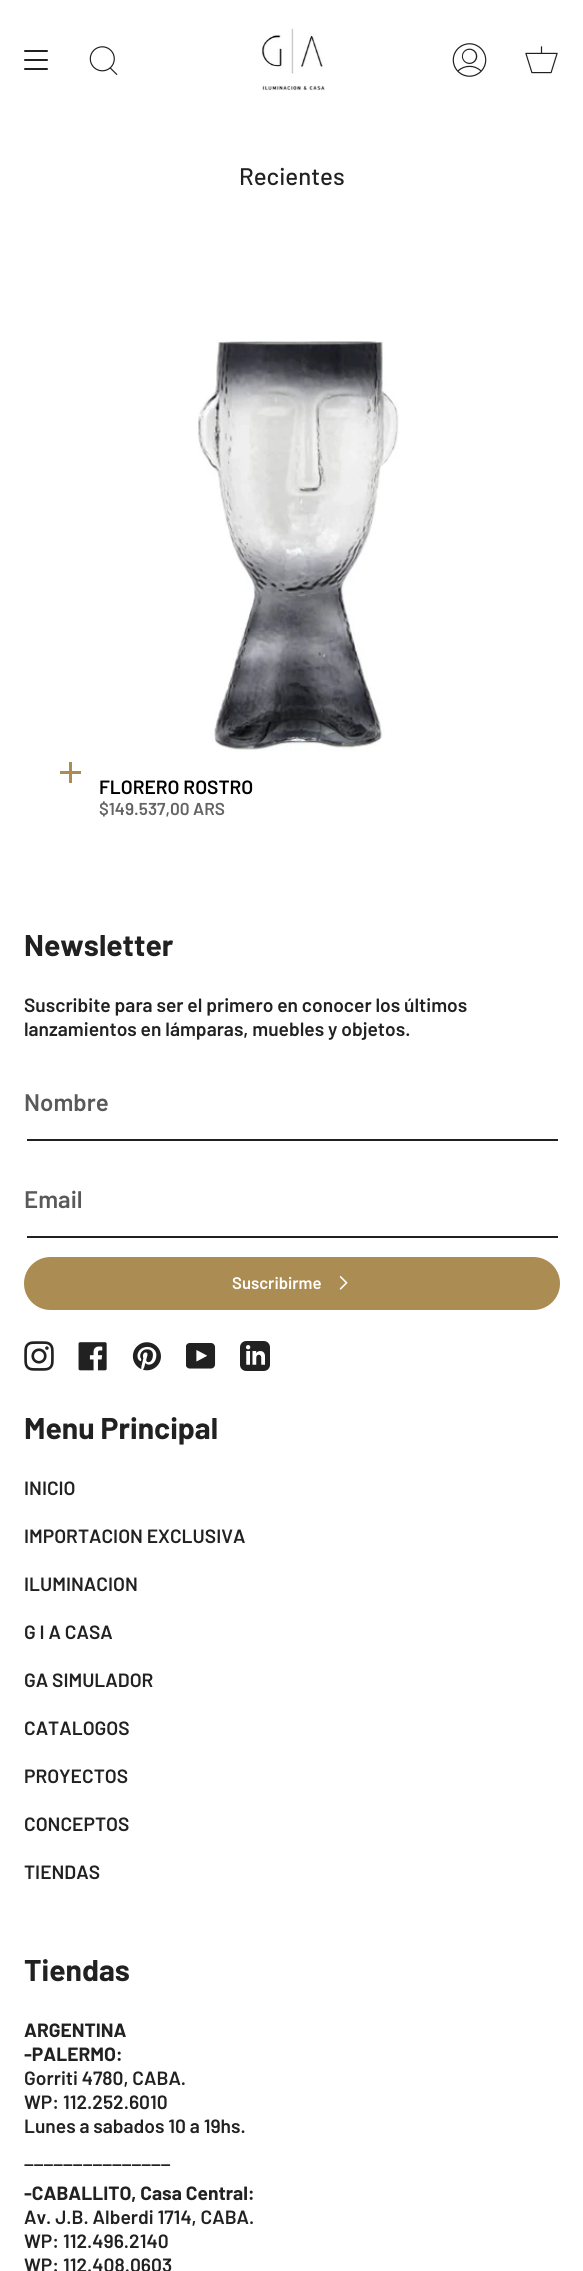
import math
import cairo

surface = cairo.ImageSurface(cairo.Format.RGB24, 583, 2271)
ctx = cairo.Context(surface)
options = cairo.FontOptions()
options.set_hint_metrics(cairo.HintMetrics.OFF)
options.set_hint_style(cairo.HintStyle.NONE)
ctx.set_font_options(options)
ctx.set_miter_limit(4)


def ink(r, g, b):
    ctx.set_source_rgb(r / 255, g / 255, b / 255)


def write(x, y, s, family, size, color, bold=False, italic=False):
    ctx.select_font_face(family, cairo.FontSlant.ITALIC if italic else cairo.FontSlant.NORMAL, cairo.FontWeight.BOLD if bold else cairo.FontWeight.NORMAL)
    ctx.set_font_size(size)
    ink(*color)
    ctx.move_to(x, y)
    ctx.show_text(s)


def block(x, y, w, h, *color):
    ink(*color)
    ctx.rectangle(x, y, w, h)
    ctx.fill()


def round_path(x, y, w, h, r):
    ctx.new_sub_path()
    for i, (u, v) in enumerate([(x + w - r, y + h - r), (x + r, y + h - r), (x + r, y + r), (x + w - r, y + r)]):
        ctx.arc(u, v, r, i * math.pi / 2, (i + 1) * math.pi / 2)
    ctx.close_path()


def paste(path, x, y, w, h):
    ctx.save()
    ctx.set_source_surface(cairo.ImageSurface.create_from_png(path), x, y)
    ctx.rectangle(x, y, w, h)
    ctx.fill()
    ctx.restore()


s1 = dict(family="Barlow Medium", size=24, color=(33, 33, 33))
s2 = dict(family="Barlow SemiBold", size=19.2, color=(0, 0, 0))
s3 = dict(family="Barlow SemiBold", size=17.25, color=(100, 100, 100))
s4 = dict(family="Barlow", size=30, color=(33, 33, 33), bold=True)
s5 = dict(family="Barlow SemiBold", size=19.2, color=(33, 33, 33))
s6 = dict(family="Barlow SemiBold", size=24, color=(89, 89, 89))
s7 = dict(family="Barlow SemiBold", size=16.75, color=(255, 255, 255))
s8 = dict(family="Barlow", size=19.2, color=(33, 33, 33), bold=True)

ink(255, 255, 255)
ctx.paint()
ink(33, 33, 33)
round_path(24, 50, 24, 2, 1)
ctx.fill()
round_path(24, 59, 24, 2, 1)
ctx.fill()
round_path(24, 68, 24, 2, 1)
ctx.fill()
paste("pic1.png", 89, 46, 29, 29)
paste("pic2.png", 261, 28, 64, 63)
paste("pic3.png", 452, 43, 35, 34)
paste("pic4.png", 525, 46, 33, 28)
write(239, 185, "Recientes", **s1)
paste("pic5.png", 198, 340, 201, 411)
block(60, 771, 21, 3, 171, 140, 82)
block(69, 762, 3, 21, 171, 140, 82)
write(99, 794, "FLORERO ROSTRO", **s2)
write(99, 815, "$149.537,00 ARS", **s3)
write(24, 956, "Newsletter", **s4)
write(24, 1012, "Suscribite para ser el primero en conocer los últimos", **s5)
write(24, 1036, "lanzamientos en lámparas, muebles y objetos.", **s5)
block(27, 1139, 531, 2, 33, 33, 33)
write(24, 1111, "Nombre", **s6)
block(27, 1236, 531, 2, 33, 33, 33)
write(24, 1208, "Email", **s6)
ink(171, 140, 82)
round_path(25, 1258, 534, 51, 25.5)
ctx.fill_preserve()
ctx.stroke()
write(232, 1289, "Suscribirme", **s7)
paste("pic6.png", 339, 1275, 9, 15)
paste("pic7.png", 24, 1341, 30, 30)
paste("pic8.png", 78, 1342, 29, 29)
paste("pic9.png", 132, 1342, 29, 29)
paste("pic10.png", 186, 1343, 30, 26)
paste("pic11.png", 240, 1341, 30, 30)
write(24, 1439, "Menu Principal", **s4)
write(24, 1495, "INICIO", **s5)
write(24, 1543, "IMPORTACION EXCLUSIVA", **s5)
write(24, 1591, "ILUMINACION", **s5)
write(24, 1639, "G I A CASA", **s5)
write(24, 1687, "GA SIMULADOR", **s5)
write(24, 1735, "CATALOGOS", **s5)
write(24, 1783, "PROYECTOS", **s5)
write(24, 1831, "CONCEPTOS", **s5)
write(24, 1879, "TIENDAS", **s5)
write(24, 1981, "Tiendas", **s4)
write(24, 2037, "ARGENTINA", **s8)
write(24, 2061, "-PALERMO:", **s8)
write(24, 2085, "Gorriti 4780, CABA.", **s5)
write(24, 2109, "WP: 112.252.6010", **s5)
write(24, 2133, "Lunes a sabados 10 a 19hs.", **s5)
write(24, 2166, "_______________", **s5)
write(24, 2200, "-CABALLITO, Casa Central:", **s8)
write(24, 2224, "Av. J.B. Alberdi 1714, CABA.", **s5)
write(24, 2248, "WP: 112.496.2140", **s5)
write(24, 2272, "WP: 112.408.0603", **s5)
surface.write_to_png("screenshot.png")
